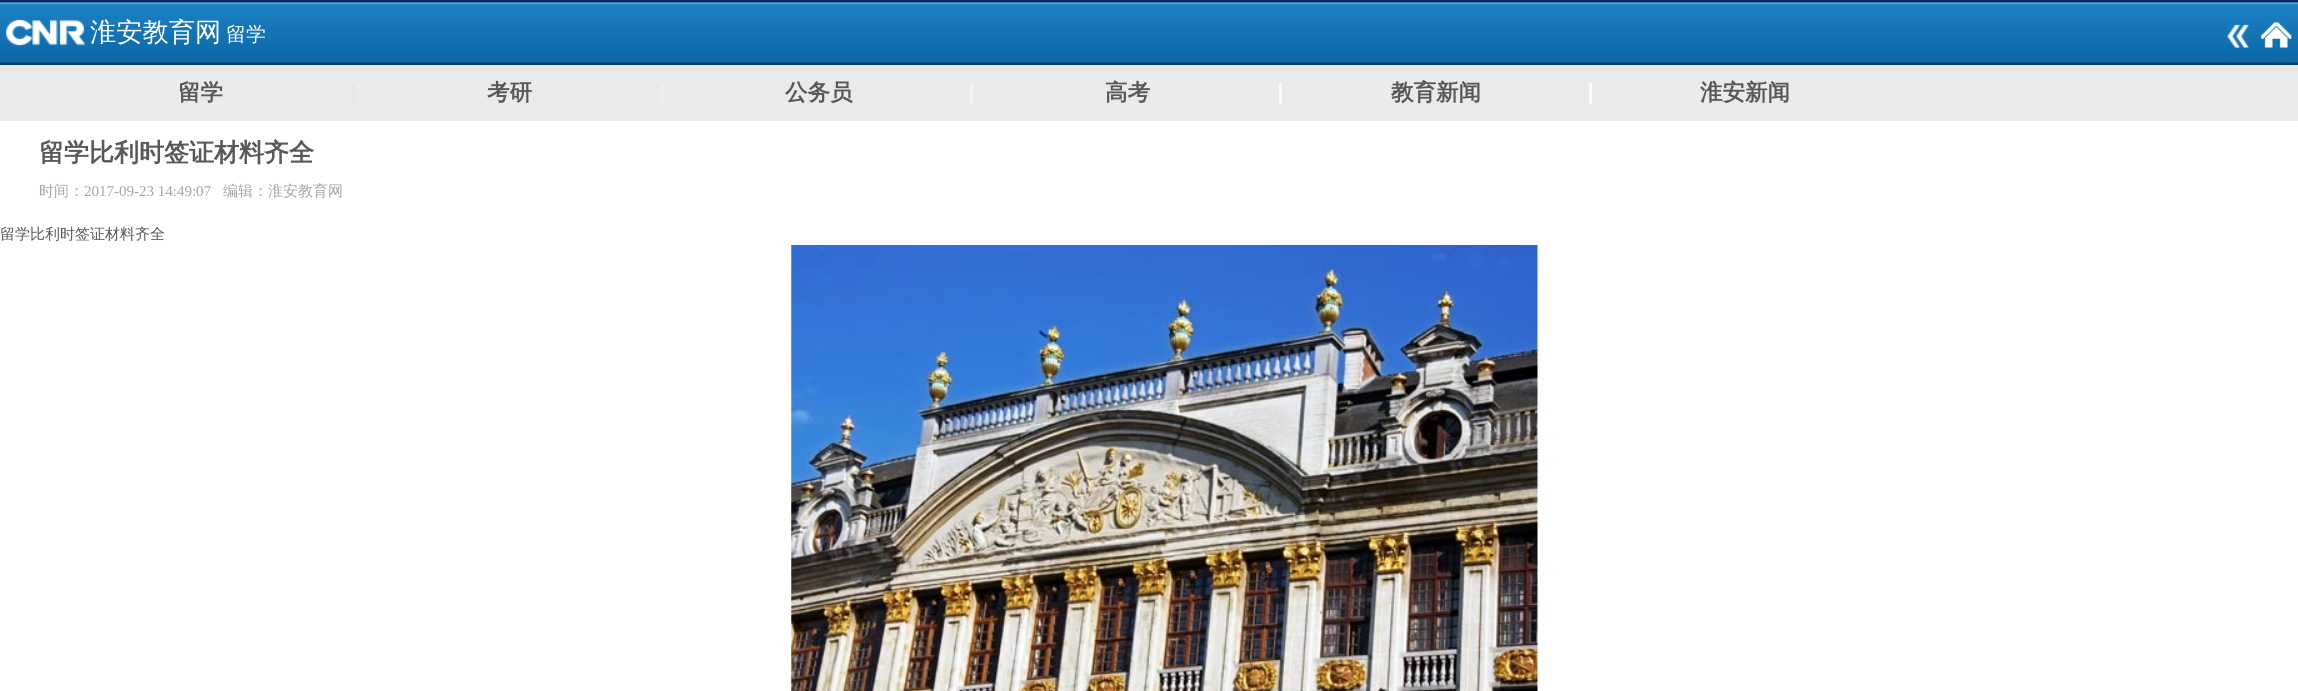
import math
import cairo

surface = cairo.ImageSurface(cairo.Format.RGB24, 2298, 691)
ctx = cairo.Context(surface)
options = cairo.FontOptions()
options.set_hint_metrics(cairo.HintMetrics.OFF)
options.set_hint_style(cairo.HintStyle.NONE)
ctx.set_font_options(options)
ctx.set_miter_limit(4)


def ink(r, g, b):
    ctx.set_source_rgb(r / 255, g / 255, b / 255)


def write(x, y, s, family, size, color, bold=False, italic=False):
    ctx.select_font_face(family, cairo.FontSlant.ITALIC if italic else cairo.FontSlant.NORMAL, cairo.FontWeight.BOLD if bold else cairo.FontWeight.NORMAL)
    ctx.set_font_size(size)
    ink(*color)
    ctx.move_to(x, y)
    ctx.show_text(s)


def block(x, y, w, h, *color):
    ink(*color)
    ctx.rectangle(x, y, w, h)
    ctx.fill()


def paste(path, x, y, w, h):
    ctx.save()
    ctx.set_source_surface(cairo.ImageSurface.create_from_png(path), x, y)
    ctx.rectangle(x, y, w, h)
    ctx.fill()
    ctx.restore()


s1 = dict(family="WenQuanYi Zen Hei Medium", size=26.25, color=(255, 255, 255))
s2 = dict(family="WenQuanYi Zen Hei Medium", size=20, color=(255, 255, 255))
s3 = dict(family="WenQuanYi Zen Hei", size=22.5, color=(88, 88, 88), bold=True)
s4 = dict(family="WenQuanYi Zen Hei", size=25, color=(88, 88, 88), bold=True)
s5 = dict(family="WenQuanYi Zen Hei Medium", size=15, color=(166, 166, 166))
s6 = dict(family="Liberation Serif", size=15, color=(166, 166, 166))
s7 = dict(family="WenQuanYi Zen Hei Medium", size=15, color=(88, 88, 88))

ink(255, 255, 255)
ctx.paint()
paste("pic1.png", 0, 0, 2298, 65)
paste("pic2.png", 6, 20, 79, 26)
write(90, 41, "淮安教育网", **s1)
write(226, 41, "留学", **s2)
paste("pic3.png", 2227, 24, 22, 24)
paste("pic4.png", 2261, 22, 31, 26)
block(0, 65, 2298, 56, 234, 234, 234)
block(352, 83, 3, 21, 230, 230, 230)
write(178, 100, "留学", **s3)
block(661, 84, 3, 20, 238, 238, 238)
write(487, 100, "考研", **s3)
block(970, 84, 3, 20, 244, 244, 244)
write(785, 100, "公务员", **s3)
block(1279, 83, 3, 21, 250, 250, 250)
write(1105, 100, "高考", **s3)
block(1589, 83, 3, 21, 250, 250, 250)
write(1391, 100, "教育新闻", **s3)
write(1700, 100, "淮安新闻", **s3)
write(39, 161, "留学比利时签证材料齐全", **s4)
write(39, 196, "时间：", **s5)
write(84, 196, "2017-09-23 14:49:07", **s6)
write(223, 196, "编辑：淮安教育网", **s5)
write(0, 239, "留学比利时签证材料齐全", **s7)
paste("pic5.png", 791, 245, 747, 446)
surface.write_to_png("screenshot.png")
